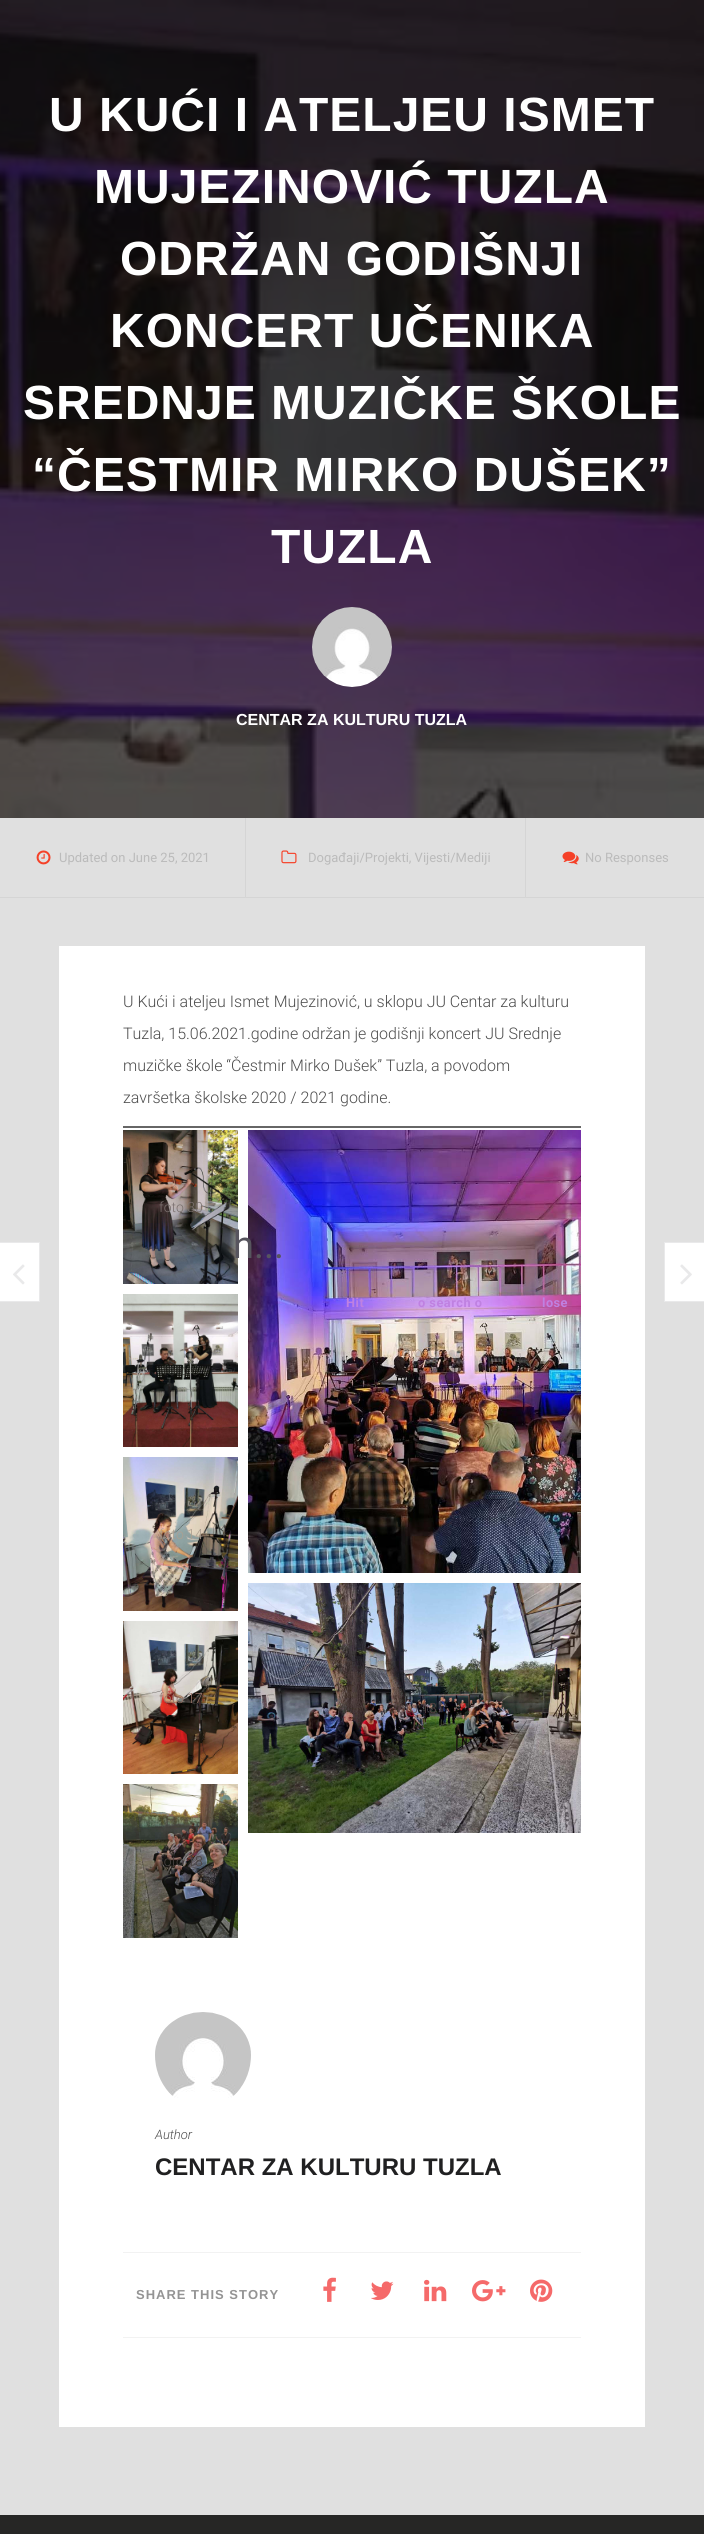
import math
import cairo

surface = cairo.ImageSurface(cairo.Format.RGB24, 704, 2534)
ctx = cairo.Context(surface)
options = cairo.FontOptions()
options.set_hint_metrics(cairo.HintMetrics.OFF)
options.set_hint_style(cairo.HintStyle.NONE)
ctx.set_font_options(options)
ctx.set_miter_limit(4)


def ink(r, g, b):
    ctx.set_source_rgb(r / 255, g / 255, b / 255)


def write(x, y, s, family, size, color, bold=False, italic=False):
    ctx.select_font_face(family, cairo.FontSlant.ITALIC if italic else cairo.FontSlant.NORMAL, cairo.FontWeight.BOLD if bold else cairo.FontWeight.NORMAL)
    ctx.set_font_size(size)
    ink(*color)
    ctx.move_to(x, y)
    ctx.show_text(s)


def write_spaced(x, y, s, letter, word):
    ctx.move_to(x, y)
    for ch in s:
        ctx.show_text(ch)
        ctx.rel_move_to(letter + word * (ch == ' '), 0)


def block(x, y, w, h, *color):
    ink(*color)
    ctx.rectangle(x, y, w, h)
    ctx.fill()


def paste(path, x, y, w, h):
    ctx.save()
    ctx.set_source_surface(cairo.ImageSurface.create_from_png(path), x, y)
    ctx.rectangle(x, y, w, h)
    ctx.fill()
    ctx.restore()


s1 = dict(family="Liberation Sans", size=16, color=(255, 255, 255), bold=True)
s2 = dict(family="Roboto", size=13, color=(187, 187, 187))
s3 = dict(family="Roboto Light", size=16, color=(77, 77, 77))
s4 = dict(family="Roboto Light", size=14, color=(123, 113, 111))
s5 = dict(family="Roboto Light", size=14, color=(180, 154, 135))
s6 = dict(family="Roboto Light", size=14, color=(46, 47, 42))
s7 = dict(family="Roboto Light", size=14, color=(171, 159, 144))
s8 = dict(family="Roboto Light", size=14, color=(148, 112, 100))
s9 = dict(family="Roboto Light", size=14, color=(89, 70, 71))
s10 = dict(family="Roboto Light", size=14, color=(74, 66, 65))
s11 = dict(family="Roboto Light", size=13, color=(77, 77, 77), italic=True)
s12 = dict(family="Liberation Sans", size=24, color=(32, 32, 33), bold=True)
s13 = dict(family="Roboto", size=38, color=(87, 85, 94))

ink(224, 224, 224)
ctx.paint()
paste("pic1.png", 0, 0, 704, 818)
ctx.select_font_face("Liberation Sans", cairo.FontSlant.NORMAL, cairo.FontWeight.BOLD)
ctx.set_font_size(48)
ink(255, 255, 255)
write_spaced(49, 131, "U KUĆI I ATELJEU ISMET", 1, 0)
write_spaced(94, 203, "MUJEZINOVIĆ TUZLA", 1, 0)
write_spaced(120, 275, "ODRŽAN GODIŠNJI", 1, 0)
write_spaced(110, 347, "KONCERT UČENIKA", 1, 0)
write_spaced(23, 419, "SREDNJE MUZIČKE ŠKOLE", 1, 0)
write_spaced(32, 491, "“ČESTMIR MIRKO DUŠEK”", 1, 0)
write_spaced(271, 563, "TUZLA", 1, 0)
paste("pic2.png", 312, 607, 80, 80)
write(236, 725, "CENTAR ZA KULTURU TUZLA", **s1)
ink(213, 213, 213)
ctx.new_path()
ctx.move_to(246, 818)
ctx.line_to(246, 898)
ctx.line_to(245, 897)
ctx.line_to(245, 818)
ctx.close_path()
ctx.fill()
ctx.set_source_rgba(0, 0, 0, 0.05)
ctx.new_path()
ctx.move_to(246, 898)
ctx.line_to(0, 898)
ctx.line_to(0, 897)
ctx.line_to(245, 897)
ctx.close_path()
ctx.fill()
paste("pic3.png", 36, 850, 15, 15)
write(59, 862, "Updated on June 25, 2021", **s2)
ink(213, 213, 213)
ctx.new_path()
ctx.move_to(526, 818)
ctx.line_to(526, 898)
ctx.line_to(525, 897)
ctx.line_to(525, 818)
ctx.close_path()
ctx.fill()
ctx.set_source_rgba(0, 0, 0, 0.05)
ctx.new_path()
ctx.move_to(526, 898)
ctx.line_to(246, 898)
ctx.line_to(246, 897)
ctx.line_to(525, 897)
ctx.close_path()
ctx.fill()
paste("pic4.png", 281, 850, 16, 14)
write(308, 862, "Događaji/Projekti, Vijesti/Mediji", **s2)
block(526, 897, 178, 1, 213, 213, 213)
paste("pic5.png", 562, 851, 17, 14)
write(585, 862, "No Responses", **s2)
block(59, 946, 586, 1481, 255, 255, 255)
write(123, 1007, "U Kući i ateljeu Ismet Mujezinović, u sklopu JU Centar za kulturu", **s3)
write(123, 1039, "Tuzla, 15.06.2021.godine održan je godišnji koncert JU Srednje", **s3)
write(123, 1071, "muzičke škole “Čestmir Mirko Dušek” Tuzla, a povodom", **s3)
write(123, 1103, "završetka školske 2020 / 2021 godine.", **s3)
block(123, 1126, 458, 2, 102, 102, 102)
paste("pic6.png", 123, 1130, 115, 154)
write(159, 1212, "foto 30", **s4)
paste("pic7.png", 248, 1130, 333, 443)
write(397, 1357, "foto 7", **s5)
paste("pic8.png", 123, 1294, 115, 153)
write(163, 1375, "foto 6", **s6)
paste("pic9.png", 123, 1457, 115, 154)
write(159, 1539, "foto 14", **s7)
paste("pic10.png", 123, 1621, 115, 153)
write(159, 1703, "foto 17", **s8)
paste("pic11.png", 248, 1583, 333, 250)
write(393, 1713, "foto 13", **s9)
paste("pic12.png", 123, 1784, 115, 154)
write(159, 1866, "foto 18", **s10)
ctx.rectangle(-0.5, 1242.5, 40, 59)
ink(233, 233, 234)
ctx.set_line_width(1)
ctx.stroke()
block(0, 1243, 39, 58, 255, 255, 255)
paste("pic13.png", 13, 1264, 12, 21)
ctx.rectangle(664.5, 1242.5, 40, 59)
ctx.fill_preserve()
ink(233, 233, 234)
ctx.stroke()
paste("pic14.png", 680, 1264, 12, 21)
paste("pic15.png", 155, 2012, 96, 86)
write(155, 2139, "Author", **s11)
write(155, 2175, "CENTAR ZA KULTURU TUZLA", **s12)
block(123, 2252, 458, 1, 242, 242, 242)
block(123, 2337, 458, 1, 242, 242, 242)
ctx.set_font_size(13)
ink(148, 148, 148)
write_spaced(136, 2299, "SHARE THIS STORY", 1, 0)
paste("pic16.png", 323, 2277, 13, 25)
paste("pic17.png", 371, 2281, 23, 19)
paste("pic18.png", 424, 2279, 23, 23)
paste("pic19.png", 472, 2280, 34, 22)
paste("pic20.png", 530, 2279, 23, 23)
write(233, 1258, "h...", **s13)
ctx.select_font_face("Roboto", cairo.FontSlant.NORMAL, cairo.FontWeight.BOLD)
ctx.set_font_size(12.75)
ink(191, 129, 225)
write_spaced(346, 1307, "Hit", 0.5, 0)
write_spaced(418, 1307, "o search o", 0.5, 0)
write_spaced(542, 1307, "lose", 0.5, 0)
block(0, 2515, 704, 19, 38, 38, 37)
surface.write_to_png("screenshot.png")
